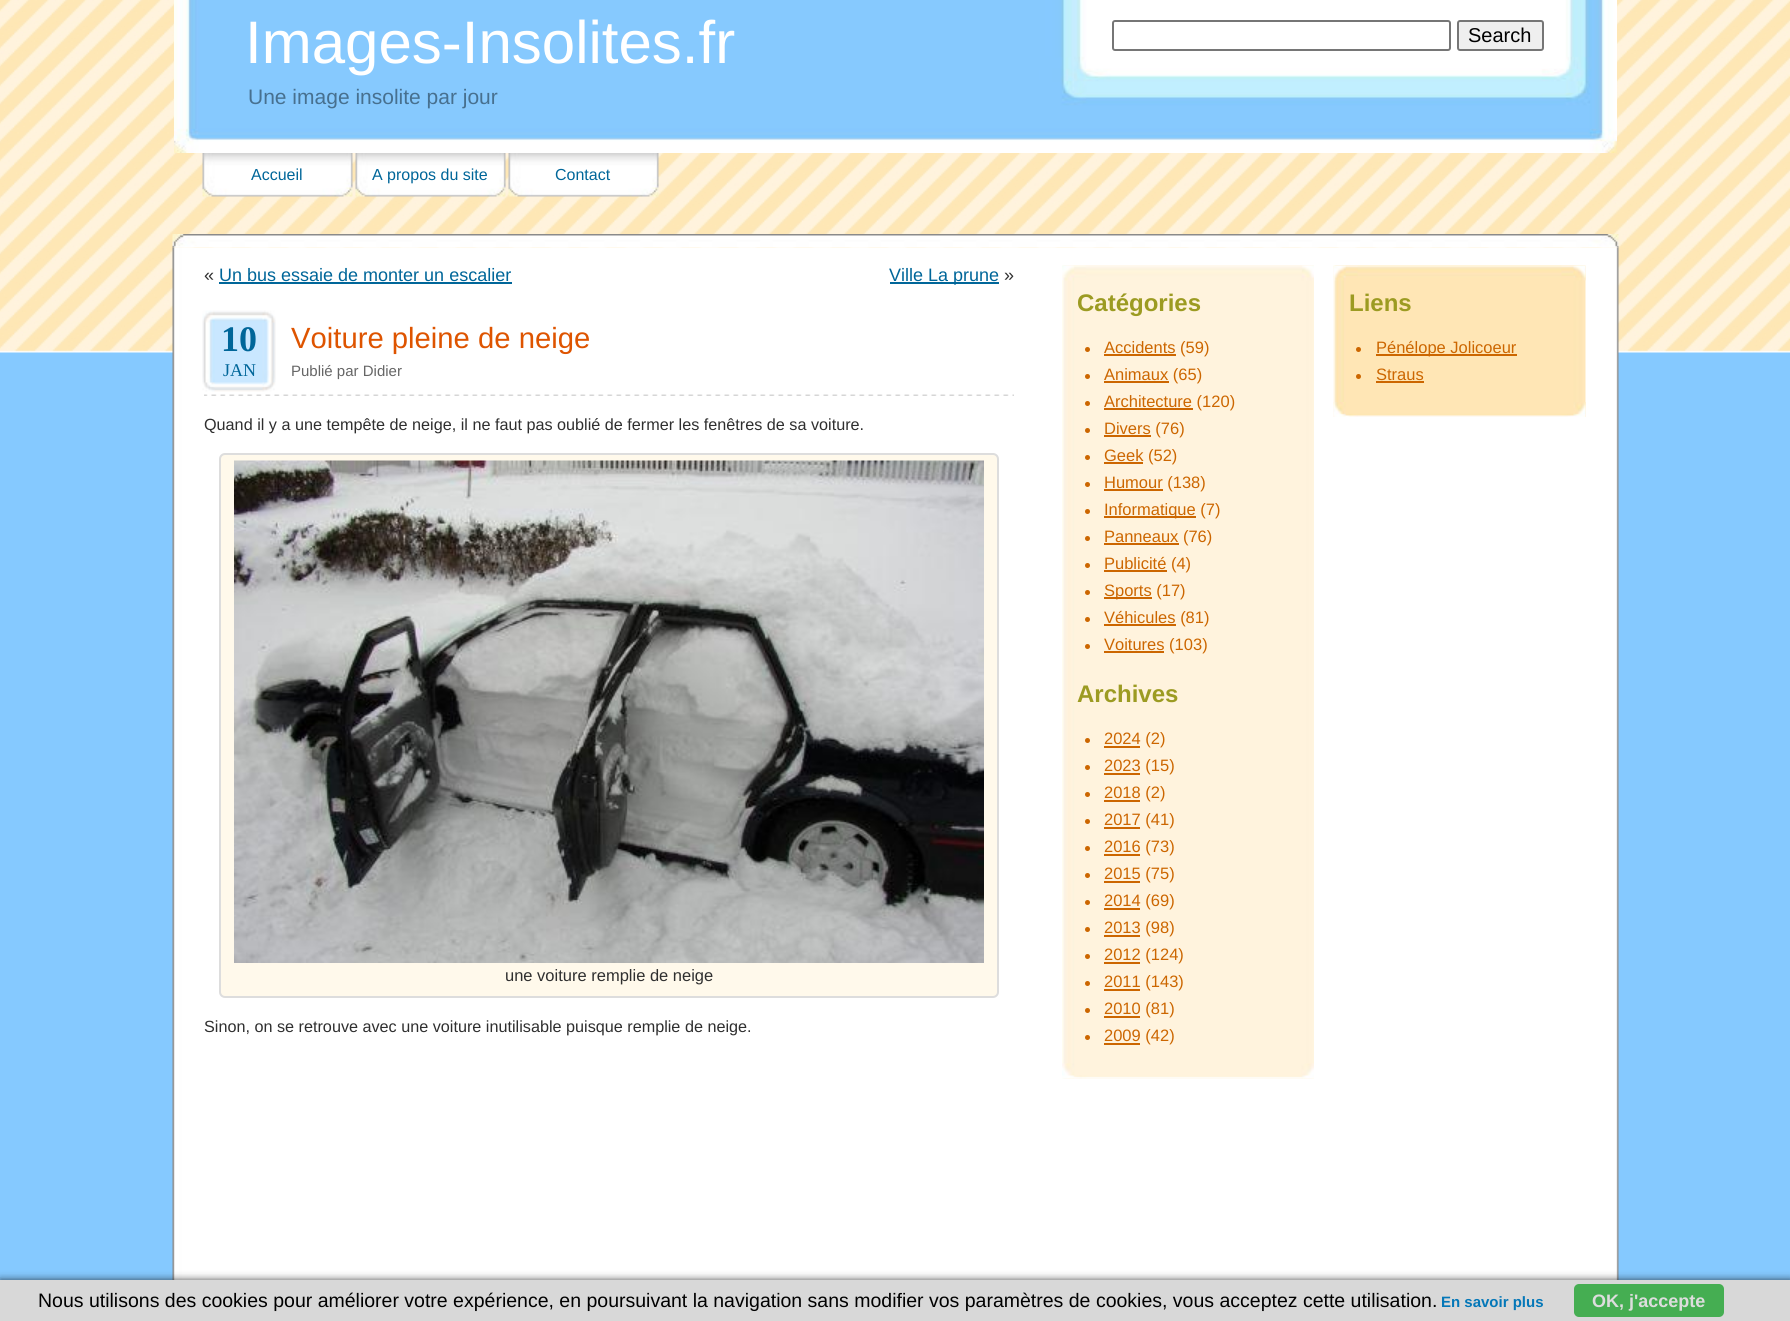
import math
import cairo

surface = cairo.ImageSurface(cairo.Format.RGB24, 1790, 1321)
ctx = cairo.Context(surface)
options = cairo.FontOptions()
options.set_hint_metrics(cairo.HintMetrics.OFF)
options.set_hint_style(cairo.HintStyle.NONE)
ctx.set_font_options(options)
ctx.set_miter_limit(4)


def ink(r, g, b):
    ctx.set_source_rgb(r / 255, g / 255, b / 255)


def write(x, y, s, family, size, color, bold=False, italic=False):
    ctx.select_font_face(family, cairo.FontSlant.ITALIC if italic else cairo.FontSlant.NORMAL, cairo.FontWeight.BOLD if bold else cairo.FontWeight.NORMAL)
    ctx.set_font_size(size)
    ink(*color)
    ctx.move_to(x, y)
    ctx.show_text(s)


def block(x, y, w, h, *color):
    ink(*color)
    ctx.rectangle(x, y, w, h)
    ctx.fill()


def round_path(x, y, w, h, r):
    ctx.new_sub_path()
    for i, (u, v) in enumerate([(x + w - r, y + h - r), (x + r, y + h - r), (x + r, y + r), (x + w - r, y + r)]):
        ctx.arc(u, v, r, i * math.pi / 2, (i + 1) * math.pi / 2)
    ctx.close_path()


def blur_box(x, y, w, h, r, blur, alpha):
    ctx.push_group_with_content(cairo.Content.ALPHA)
    ctx.set_operator(cairo.Operator.SOURCE)
    for i in range(15, -16, -2):
        e = blur * i / 6
        if min(w, h) + 2 * e > 0:
            ctx.set_source_rgba(0, 0, 0, alpha * math.erfc((i - 1) / 8.5) / 2)
            round_path(x - e, y - e, w + 2 * e, h + 2 * e, max(0, min(r + e + blur * .6, min(w, h) / 2 + e)))
            ctx.fill()
    ctx.mask(ctx.pop_group())


def paste(path, x, y, w, h):
    ctx.save()
    ctx.set_source_surface(cairo.ImageSurface.create_from_png(path), x, y)
    ctx.rectangle(x, y, w, h)
    ctx.fill()
    ctx.restore()


s1 = dict(family="Liberation Sans", size=60, color=(255, 255, 255))
s2 = dict(family="Liberation Sans", size=20, color=(0, 0, 0))
s3 = dict(family="Liberation Sans", size=21, color=(71, 112, 143))
s4 = dict(family="Liberation Sans", size=16, color=(0, 102, 153))
s5 = dict(family="Liberation Sans", size=18, color=(47, 47, 47))
s6 = dict(family="Liberation Sans", size=18, color=(0, 102, 153))
s7 = dict(family="Liberation Serif", size=36, color=(0, 102, 153), bold=True)
s8 = dict(family="Liberation Serif", size=18, color=(0, 102, 153))
s9 = dict(family="Liberation Sans", size=29.25, color=(222, 84, 0))
s10 = dict(family="Liberation Sans", size=15, color=(102, 102, 102))
s11 = dict(family="Liberation Sans", size=16.2, color=(47, 47, 47))
s12 = dict(family="Liberation Sans", size=16.5, color=(47, 47, 47))
s13 = dict(family="Liberation Sans", size=24, color=(156, 155, 34), bold=True)
s14 = dict(family="Liberation Sans", size=16.5, color=(204, 102, 0))
s15 = dict(family="Liberation Sans", size=19.5, color=(0, 0, 0))
s16 = dict(family="Liberation Sans", size=15, color=(4, 119, 184), bold=True)
s17 = dict(family="Liberation Sans", size=18, color=(221, 221, 221), bold=True)

ink(133, 201, 255)
ctx.paint()
paste("pic1.png", 0, 0, 1790, 353)
paste("pic2.png", 174, 0, 1443, 153)
write(245, 63, "Images-Insolites.fr", **s1)
round_path(1113, 21, 337, 29, 2)
ink(118, 118, 118)
ctx.stroke()
ink(239, 239, 239)
round_path(1458, 21, 85, 29, 2)
ctx.fill_preserve()
ink(118, 118, 118)
ctx.stroke()
write(1468, 42, "Search", **s2)
write(248, 104, "Une image insolite par jour", **s3)
paste("pic3.png", 202, 153, 151, 44)
write(251, 180, "Accueil", **s4)
paste("pic4.png", 355, 153, 151, 44)
write(372, 180, "A propos du site", **s4)
paste("pic5.png", 508, 153, 151, 44)
write(555, 180, "Contact", **s4)
paste("pic6.png", 172, 234, 1447, 14)
paste("pic7.png", 172, 247, 1447, 1033)
write(204, 281, "«", **s5)
write(219, 281, "Un bus essaie de monter un escalier", **s6)
block(219, 282, 293, 2, 0, 102, 153)
block(890, 282, 109, 2, 0, 102, 153)
write(889, 281, "Ville La prune", **s6)
write(1004, 281, "»", **s5)
paste("pic8.png", 202, 310, 74, 82)
write(221, 351, "10", **s7)
write(223, 376, "JAN", **s8)
write(291, 348, "Voiture pleine de neige", **s9)
write(291, 376, "Publié par Didier", **s10)
paste("pic9.png", 204, 394, 810, 2)
write(204, 430, "Quand il y a une tempête de neige, il ne faut pas oublié de fermer les fenêtres de sa voiture.", **s11)
ink(255, 249, 235)
round_path(220, 454, 778, 543, 5)
ctx.fill_preserve()
ink(221, 221, 221)
ctx.stroke()
paste("pic10.png", 234, 460, 750, 503)
write(505, 981, "une voiture remplie de neige", **s12)
write(204, 1032, "Sinon, on se retrouve avec une voiture inutilisable puisque remplie de neige.", **s11)
paste("pic11.png", 1062, 265, 252, 814)
paste("pic12.png", 1062, 265, 252, 16)
write(1077, 311, "Catégories", **s13)
ink(204, 102, 0)
ctx.new_path()
ctx.arc(1087.5, 349.5, 2.5, 0, 2 * math.pi)
ctx.fill()
block(1104, 354, 72, 2, 204, 102, 0)
write(1104, 353, "Accidents (59)", **s14)
ctx.new_path()
ctx.arc(1087.5, 376.5, 2.5, 0, 2 * math.pi)
ctx.fill()
block(1104, 381, 65, 2, 204, 102, 0)
write(1104, 380, "Animaux (65)", **s14)
ctx.new_path()
ctx.arc(1087.5, 403.5, 2.5, 0, 2 * math.pi)
ctx.fill()
block(1104, 408, 89, 2, 204, 102, 0)
write(1104, 407, "Architecture (120)", **s14)
ctx.new_path()
ctx.arc(1087.5, 430.5, 2.5, 0, 2 * math.pi)
ctx.fill()
block(1104, 435, 47, 2, 204, 102, 0)
write(1104, 434, "Divers (76)", **s14)
ctx.new_path()
ctx.arc(1087.5, 457.5, 2.5, 0, 2 * math.pi)
ctx.fill()
block(1104, 462, 39, 2, 204, 102, 0)
write(1104, 461, "Geek (52)", **s14)
ctx.new_path()
ctx.arc(1087.5, 484.5, 2.5, 0, 2 * math.pi)
ctx.fill()
block(1104, 489, 59, 2, 204, 102, 0)
write(1104, 488, "Humour (138)", **s14)
ctx.new_path()
ctx.arc(1087.5, 511.5, 2.5, 0, 2 * math.pi)
ctx.fill()
block(1104, 516, 92, 2, 204, 102, 0)
write(1104, 515, "Informatique (7)", **s14)
ctx.new_path()
ctx.arc(1087.5, 538.5, 2.5, 0, 2 * math.pi)
ctx.fill()
block(1104, 543, 75, 2, 204, 102, 0)
write(1104, 542, "Panneaux (76)", **s14)
ctx.new_path()
ctx.arc(1087.5, 565.5, 2.5, 0, 2 * math.pi)
ctx.fill()
block(1104, 570, 63, 2, 204, 102, 0)
write(1104, 569, "Publicité (4)", **s14)
ctx.new_path()
ctx.arc(1087.5, 592.5, 2.5, 0, 2 * math.pi)
ctx.fill()
block(1104, 597, 48, 2, 204, 102, 0)
write(1104, 596, "Sports (17)", **s14)
ctx.new_path()
ctx.arc(1087.5, 619.5, 2.5, 0, 2 * math.pi)
ctx.fill()
block(1104, 624, 72, 2, 204, 102, 0)
write(1104, 623, "Véhicules (81)", **s14)
ctx.new_path()
ctx.arc(1087.5, 646.5, 2.5, 0, 2 * math.pi)
ctx.fill()
block(1104, 651, 60, 2, 204, 102, 0)
write(1104, 650, "Voitures (103)", **s14)
write(1077, 702, "Archives", **s13)
ink(204, 102, 0)
ctx.new_path()
ctx.arc(1087.5, 740.5, 2.5, 0, 2 * math.pi)
ctx.fill()
block(1104, 746, 36, 2, 204, 102, 0)
write(1104, 744, "2024 (2)", **s14)
ctx.new_path()
ctx.arc(1087.5, 767.5, 2.5, 0, 2 * math.pi)
ctx.fill()
block(1104, 773, 36, 2, 204, 102, 0)
write(1104, 771, "2023 (15)", **s14)
ctx.new_path()
ctx.arc(1087.5, 794.5, 2.5, 0, 2 * math.pi)
ctx.fill()
block(1104, 800, 36, 2, 204, 102, 0)
write(1104, 798, "2018 (2)", **s14)
ctx.new_path()
ctx.arc(1087.5, 821.5, 2.5, 0, 2 * math.pi)
ctx.fill()
block(1104, 827, 36, 2, 204, 102, 0)
write(1104, 825, "2017 (41)", **s14)
ctx.new_path()
ctx.arc(1087.5, 848.5, 2.5, 0, 2 * math.pi)
ctx.fill()
block(1104, 854, 36, 2, 204, 102, 0)
write(1104, 852, "2016 (73)", **s14)
ctx.new_path()
ctx.arc(1087.5, 875.5, 2.5, 0, 2 * math.pi)
ctx.fill()
block(1104, 881, 36, 2, 204, 102, 0)
write(1104, 879, "2015 (75)", **s14)
ctx.new_path()
ctx.arc(1087.5, 902.5, 2.5, 0, 2 * math.pi)
ctx.fill()
block(1104, 908, 36, 2, 204, 102, 0)
write(1104, 906, "2014 (69)", **s14)
ctx.new_path()
ctx.arc(1087.5, 929.5, 2.5, 0, 2 * math.pi)
ctx.fill()
block(1104, 935, 36, 2, 204, 102, 0)
write(1104, 933, "2013 (98)", **s14)
ctx.new_path()
ctx.arc(1087.5, 956.5, 2.5, 0, 2 * math.pi)
ctx.fill()
block(1104, 962, 36, 2, 204, 102, 0)
write(1104, 960, "2012 (124)", **s14)
ctx.new_path()
ctx.arc(1087.5, 983.5, 2.5, 0, 2 * math.pi)
ctx.fill()
block(1104, 989, 36, 2, 204, 102, 0)
write(1104, 987, "2011 (143)", **s14)
ctx.new_path()
ctx.arc(1087.5, 1010.5, 2.5, 0, 2 * math.pi)
ctx.fill()
block(1104, 1016, 36, 2, 204, 102, 0)
write(1104, 1014, "2010 (81)", **s14)
ctx.new_path()
ctx.arc(1087.5, 1037.5, 2.5, 0, 2 * math.pi)
ctx.fill()
block(1104, 1043, 36, 2, 204, 102, 0)
write(1104, 1041, "2009 (42)", **s14)
paste("pic13.png", 1062, 1063, 252, 16)
paste("pic14.png", 1333, 265, 253, 152)
paste("pic15.png", 1333, 265, 253, 16)
write(1349, 311, "Liens", **s13)
ink(204, 102, 0)
ctx.new_path()
ctx.arc(1358.5, 349.5, 2.5, 0, 2 * math.pi)
ctx.fill()
block(1376, 354, 141, 2, 204, 102, 0)
write(1376, 353, "Pénélope Jolicoeur", **s14)
ctx.new_path()
ctx.arc(1358.5, 376.5, 2.5, 0, 2 * math.pi)
ctx.fill()
write(1376, 380, "Straus", **s14)
block(1376, 381, 48, 2, 204, 102, 0)
paste("pic16.png", 1333, 402, 253, 15)
ink(0, 0, 0)
blur_box(0, 1280, 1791, 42, 0, 4, 0.7)
block(0, 1280, 1790, 41, 216, 216, 216)
write(38, 1307, "Nous utilisons des cookies pour améliorer votre expérience, en poursuivant la navigation sans modifier vos paramètres de cookies, vous acceptez cette utilisation.", **s15)
write(1441, 1307, "En savoir plus", **s16)
ink(69, 174, 82)
round_path(1574, 1284, 150, 33, 5)
ctx.fill()
write(1592, 1307, "OK, j'accepte", **s17)
surface.write_to_png("screenshot.png")
